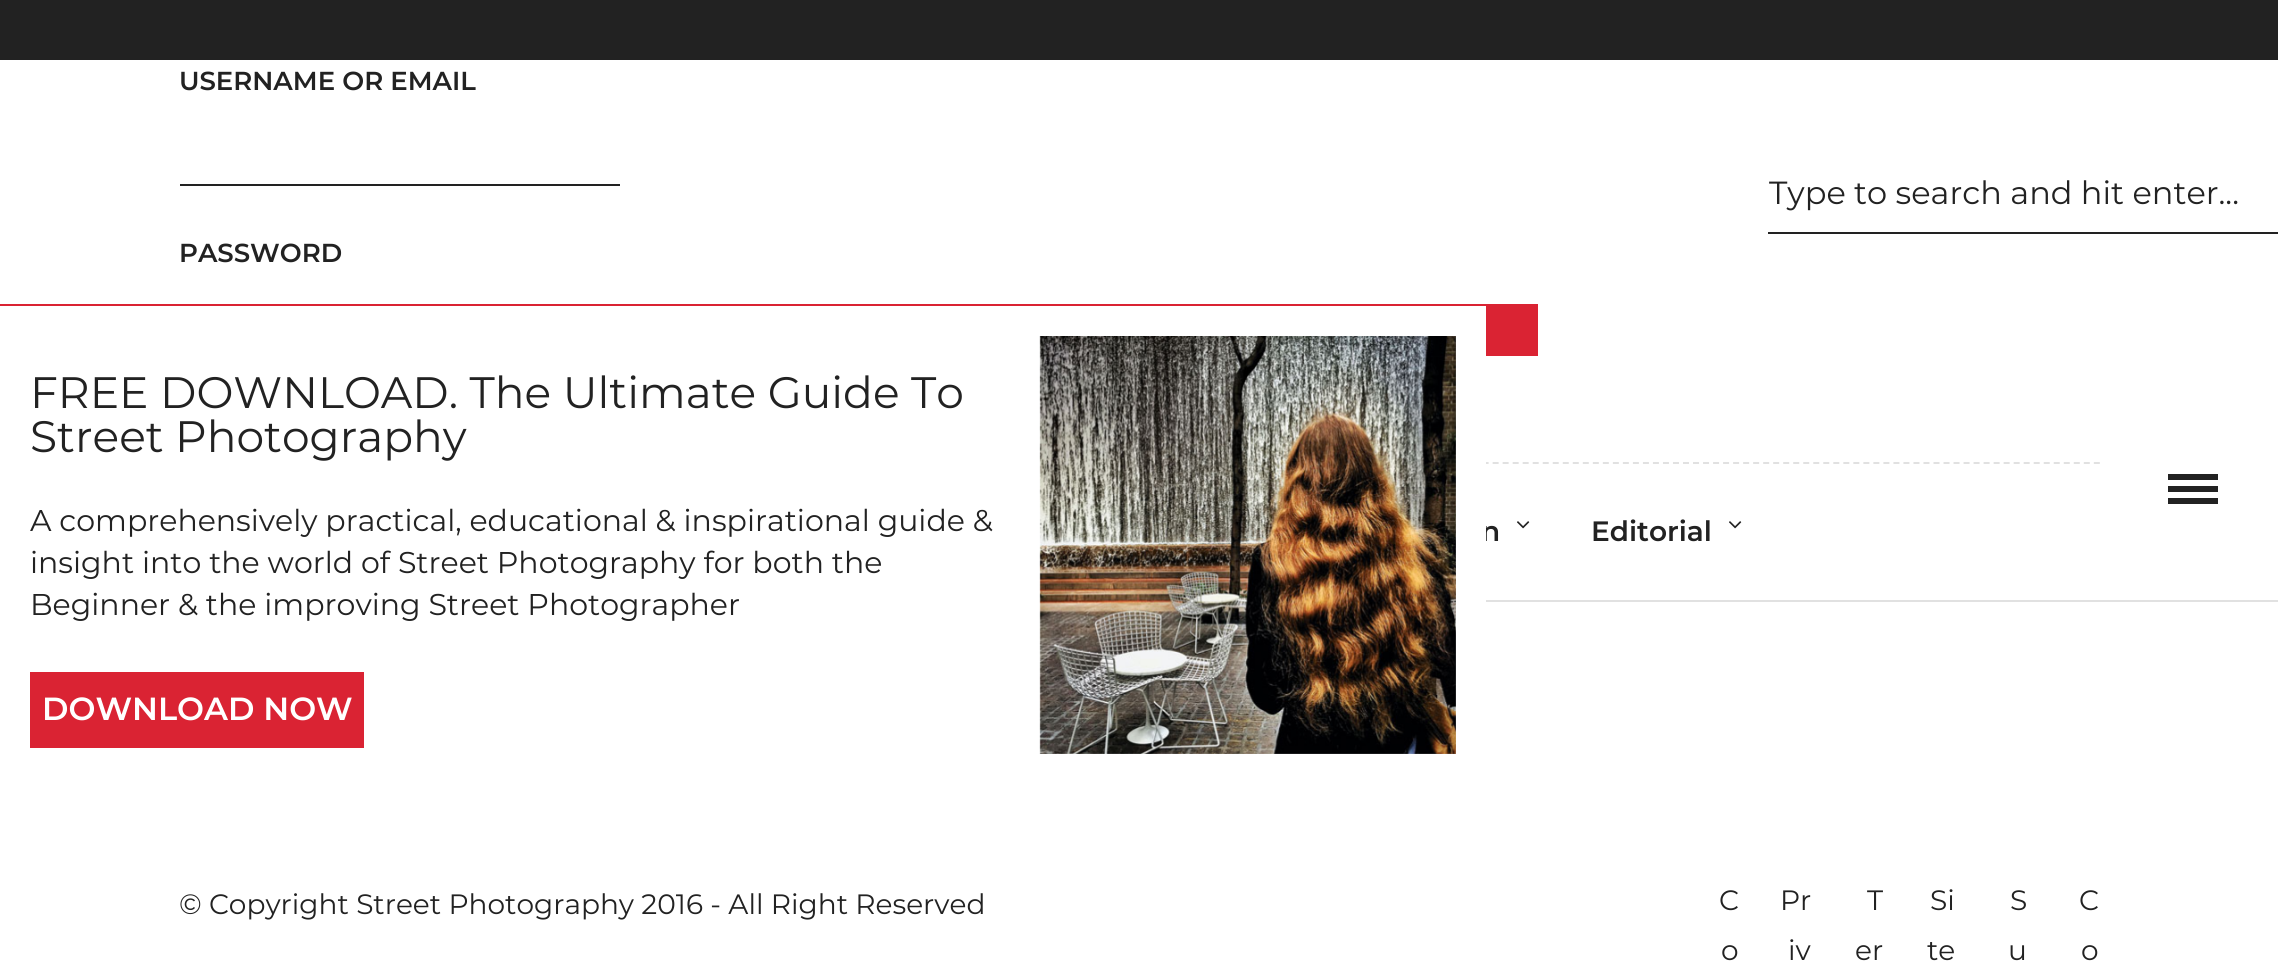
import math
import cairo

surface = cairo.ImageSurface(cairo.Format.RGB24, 2278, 970)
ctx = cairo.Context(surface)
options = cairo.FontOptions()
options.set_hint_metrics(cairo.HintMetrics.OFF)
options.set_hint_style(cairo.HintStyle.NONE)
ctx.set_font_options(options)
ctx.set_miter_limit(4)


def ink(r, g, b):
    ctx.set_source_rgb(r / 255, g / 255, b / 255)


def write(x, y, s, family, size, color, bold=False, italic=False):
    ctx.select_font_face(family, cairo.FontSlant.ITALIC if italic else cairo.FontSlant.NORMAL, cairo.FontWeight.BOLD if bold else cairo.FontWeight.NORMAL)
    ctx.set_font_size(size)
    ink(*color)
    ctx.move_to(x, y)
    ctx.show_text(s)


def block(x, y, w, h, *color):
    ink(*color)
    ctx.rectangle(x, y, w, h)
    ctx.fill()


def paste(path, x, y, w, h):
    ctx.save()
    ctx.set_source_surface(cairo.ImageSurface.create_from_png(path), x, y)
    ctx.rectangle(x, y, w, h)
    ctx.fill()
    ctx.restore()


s1 = dict(family="Montserrat SemiBold", size=26, color=(34, 34, 34))
s2 = dict(family="Montserrat", size=32, color=(34, 34, 34))
s3 = dict(family="Montserrat SemiBold", size=28, color=(34, 34, 34))
s4 = dict(family="Montserrat", size=28, color=(34, 34, 34))
s5 = dict(family="Montserrat", size=44, color=(34, 34, 34))
s6 = dict(family="Montserrat", size=30, color=(34, 34, 34))
s7 = dict(family="Montserrat SemiBold", size=32, color=(255, 255, 255))

ink(255, 255, 255)
ctx.paint()
write(179, 90, "USERNAME OR EMAIL", **s1)
block(180, 184, 440, 2, 34, 34, 34)
write(179, 262, "PASSWORD", **s1)
block(0, 0, 2278, 60, 34, 34, 34)
block(1768, 232, 510, 2, 34, 34, 34)
write(1769, 204, "Type to search and hit enter...", **s2)
block(1486, 600, 792, 2, 225, 225, 225)
ctx.new_path()
ctx.move_to(180, 463)
ctx.line_to(2100, 463)
ctx.set_dash([6, 4.02])
ctx.stroke()
block(2168, 474, 50, 6, 34, 34, 34)
block(2168, 486, 50, 6, 34, 34, 34)
block(2168, 498, 50, 6, 34, 34, 34)
write(1481, 541, "n", **s3)
paste("pic1.png", 1517, 521, 13, 8)
write(1591, 541, "Editorial", **s3)
paste("pic1.png", 1729, 521, 13, 8)
write(179, 914, "© Copyright Street Photography 2016 - All Right Reserved", **s4)
write(1719, 910, "C", **s4)
write(1721, 960, "o", **s4)
write(1780, 910, "Pr", **s4)
write(1788, 960, "iv", **s4)
write(1867, 910, "T", **s4)
write(1855, 960, "er", **s4)
write(1930, 910, "Si", **s4)
write(1927, 960, "te", **s4)
write(2010, 910, "S", **s4)
write(2008, 960, "u", **s4)
write(2079, 910, "C", **s4)
write(2081, 960, "o", **s4)
block(180, 462, 1306, 79, 255, 255, 255)
block(0, 304, 1486, 2, 218, 35, 51)
block(1486, 304, 52, 52, 218, 35, 51)
write(30, 408, "FREE DOWNLOAD. The Ultimate Guide To", **s5)
write(30, 452, "Street Photography", **s5)
write(30, 531, "A comprehensively practical, educational & inspirational guide &", **s6)
write(30, 573, "insight into the world of Street Photography for both the", **s6)
write(30, 615, "Beginner & the improving Street Photographer", **s6)
block(30, 672, 334, 76, 218, 35, 51)
write(42, 720, "DOWNLOAD NOW", **s7)
paste("pic2.png", 1039, 336, 417, 418)
surface.write_to_png("screenshot.png")
